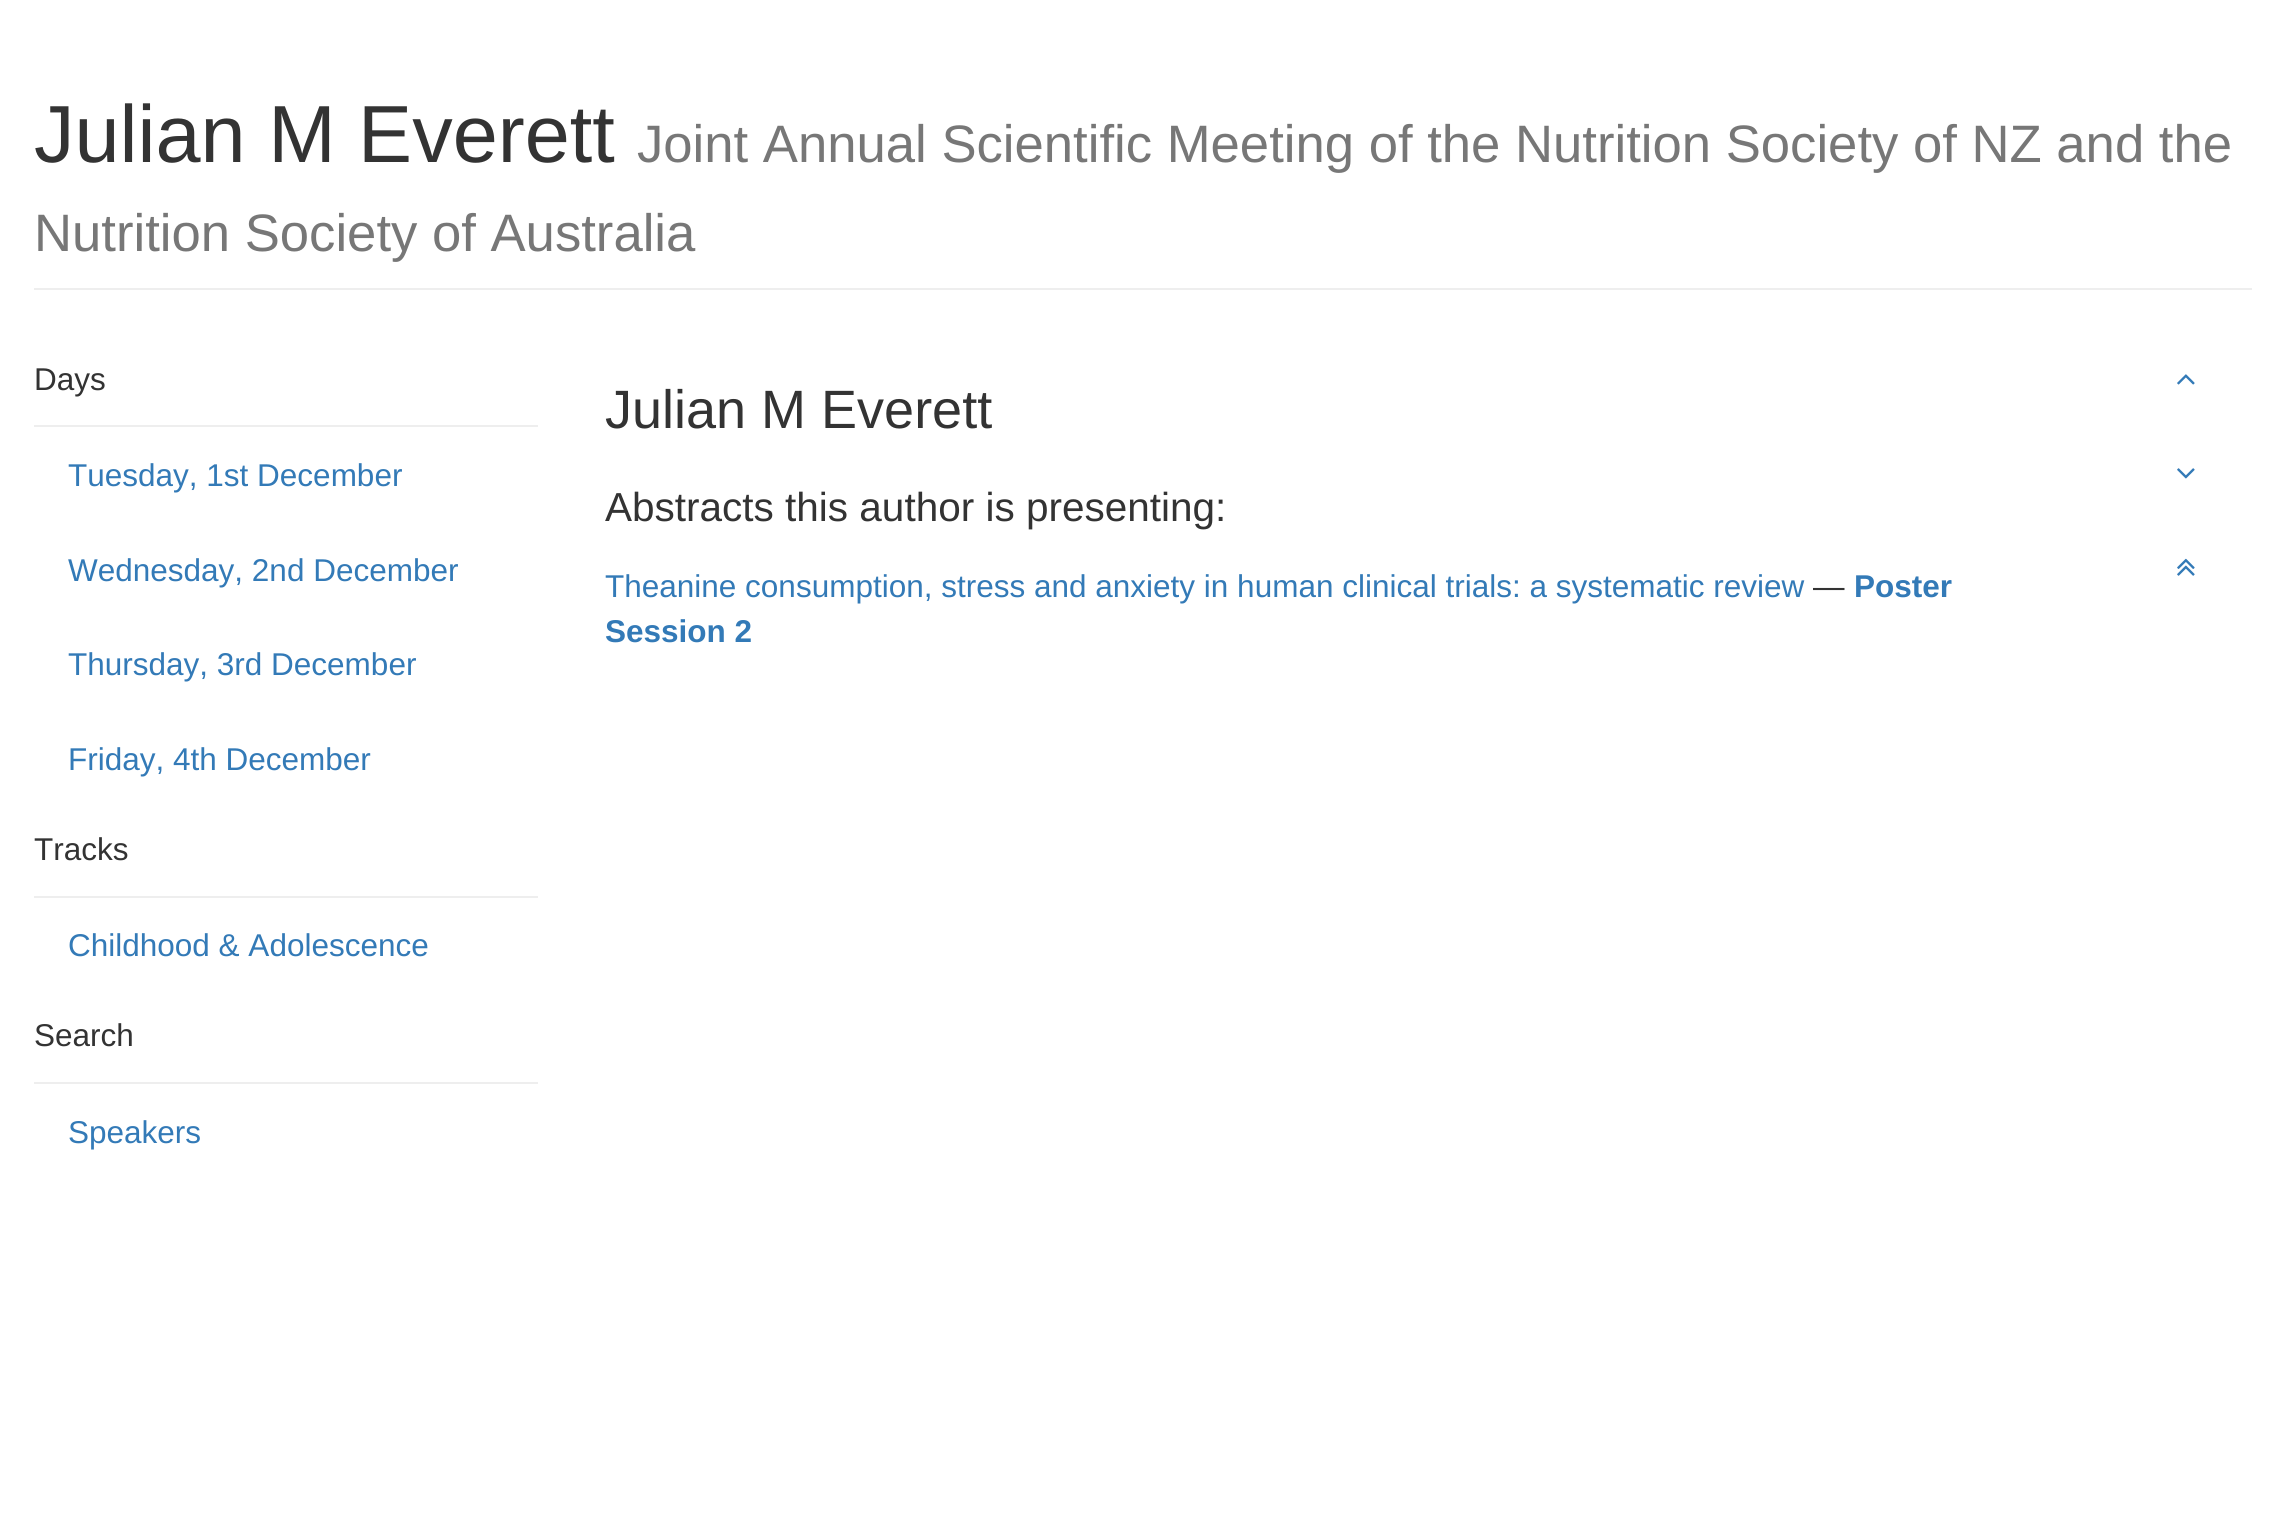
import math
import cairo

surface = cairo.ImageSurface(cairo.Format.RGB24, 2286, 1513)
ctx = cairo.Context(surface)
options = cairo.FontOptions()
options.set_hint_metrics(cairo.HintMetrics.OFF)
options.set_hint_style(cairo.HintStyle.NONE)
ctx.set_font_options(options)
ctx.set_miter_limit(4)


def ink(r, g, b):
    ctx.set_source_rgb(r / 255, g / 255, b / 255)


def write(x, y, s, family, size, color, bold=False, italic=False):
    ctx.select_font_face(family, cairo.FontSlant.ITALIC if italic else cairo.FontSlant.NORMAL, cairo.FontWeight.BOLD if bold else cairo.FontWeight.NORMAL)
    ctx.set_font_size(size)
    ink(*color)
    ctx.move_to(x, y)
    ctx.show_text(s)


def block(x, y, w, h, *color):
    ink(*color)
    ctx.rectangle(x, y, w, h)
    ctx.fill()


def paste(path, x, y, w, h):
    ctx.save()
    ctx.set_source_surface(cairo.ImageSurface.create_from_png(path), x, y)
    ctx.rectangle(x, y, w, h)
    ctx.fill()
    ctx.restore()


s1 = dict(family="Liberation Sans", size=81, color=(51, 51, 51))
s2 = dict(family="Liberation Sans", size=52.65, color=(119, 119, 119))
s3 = dict(family="Liberation Sans", size=31.5, color=(51, 51, 51))
s4 = dict(family="Liberation Sans", size=31.5, color=(51, 122, 183))
s5 = dict(family="Liberation Sans", size=54, color=(51, 51, 51))
s6 = dict(family="Liberation Sans", size=40.5, color=(51, 51, 51))
s7 = dict(family="Liberation Sans", size=31.5, color=(51, 122, 183), bold=True)

ink(255, 255, 255)
ctx.paint()
block(34, 288, 2218, 2, 238, 238, 238)
write(34, 162, "Julian M Everett", **s1)
write(637, 162, "Joint Annual Scientific Meeting of the Nutrition Society of NZ and the", **s2)
write(34, 251, "Nutrition Society of Australia", **s2)
block(34, 425, 504, 2, 238, 238, 238)
write(34, 390, "Days", **s3)
write(68, 486, "Tuesday, 1st December", **s4)
write(68, 581, "Wednesday, 2nd December", **s4)
write(68, 675, "Thursday, 3rd December", **s4)
write(68, 770, "Friday, 4th December", **s4)
block(34, 896, 504, 2, 238, 238, 238)
write(34, 860, "Tracks", **s3)
write(68, 956, "Childhood & Adolescence", **s4)
block(34, 1082, 504, 2, 238, 238, 238)
write(34, 1046, "Search", **s3)
write(68, 1143, "Speakers", **s4)
write(605, 428, "Julian M Everett", **s5)
write(605, 521, "Abstracts this author is presenting:", **s6)
write(605, 597, "Theanine consumption, stress and anxiety in human clinical trials: a systematic review", **s4)
write(1813, 597, "—", **s3)
write(1854, 597, "Poster", **s7)
write(605, 642, "Session 2", **s7)
paste("pic1.png", 2177, 374, 18, 11)
paste("pic2.png", 2177, 468, 18, 11)
paste("pic3.png", 2177, 558, 18, 18)
surface.write_to_png("screenshot.png")
